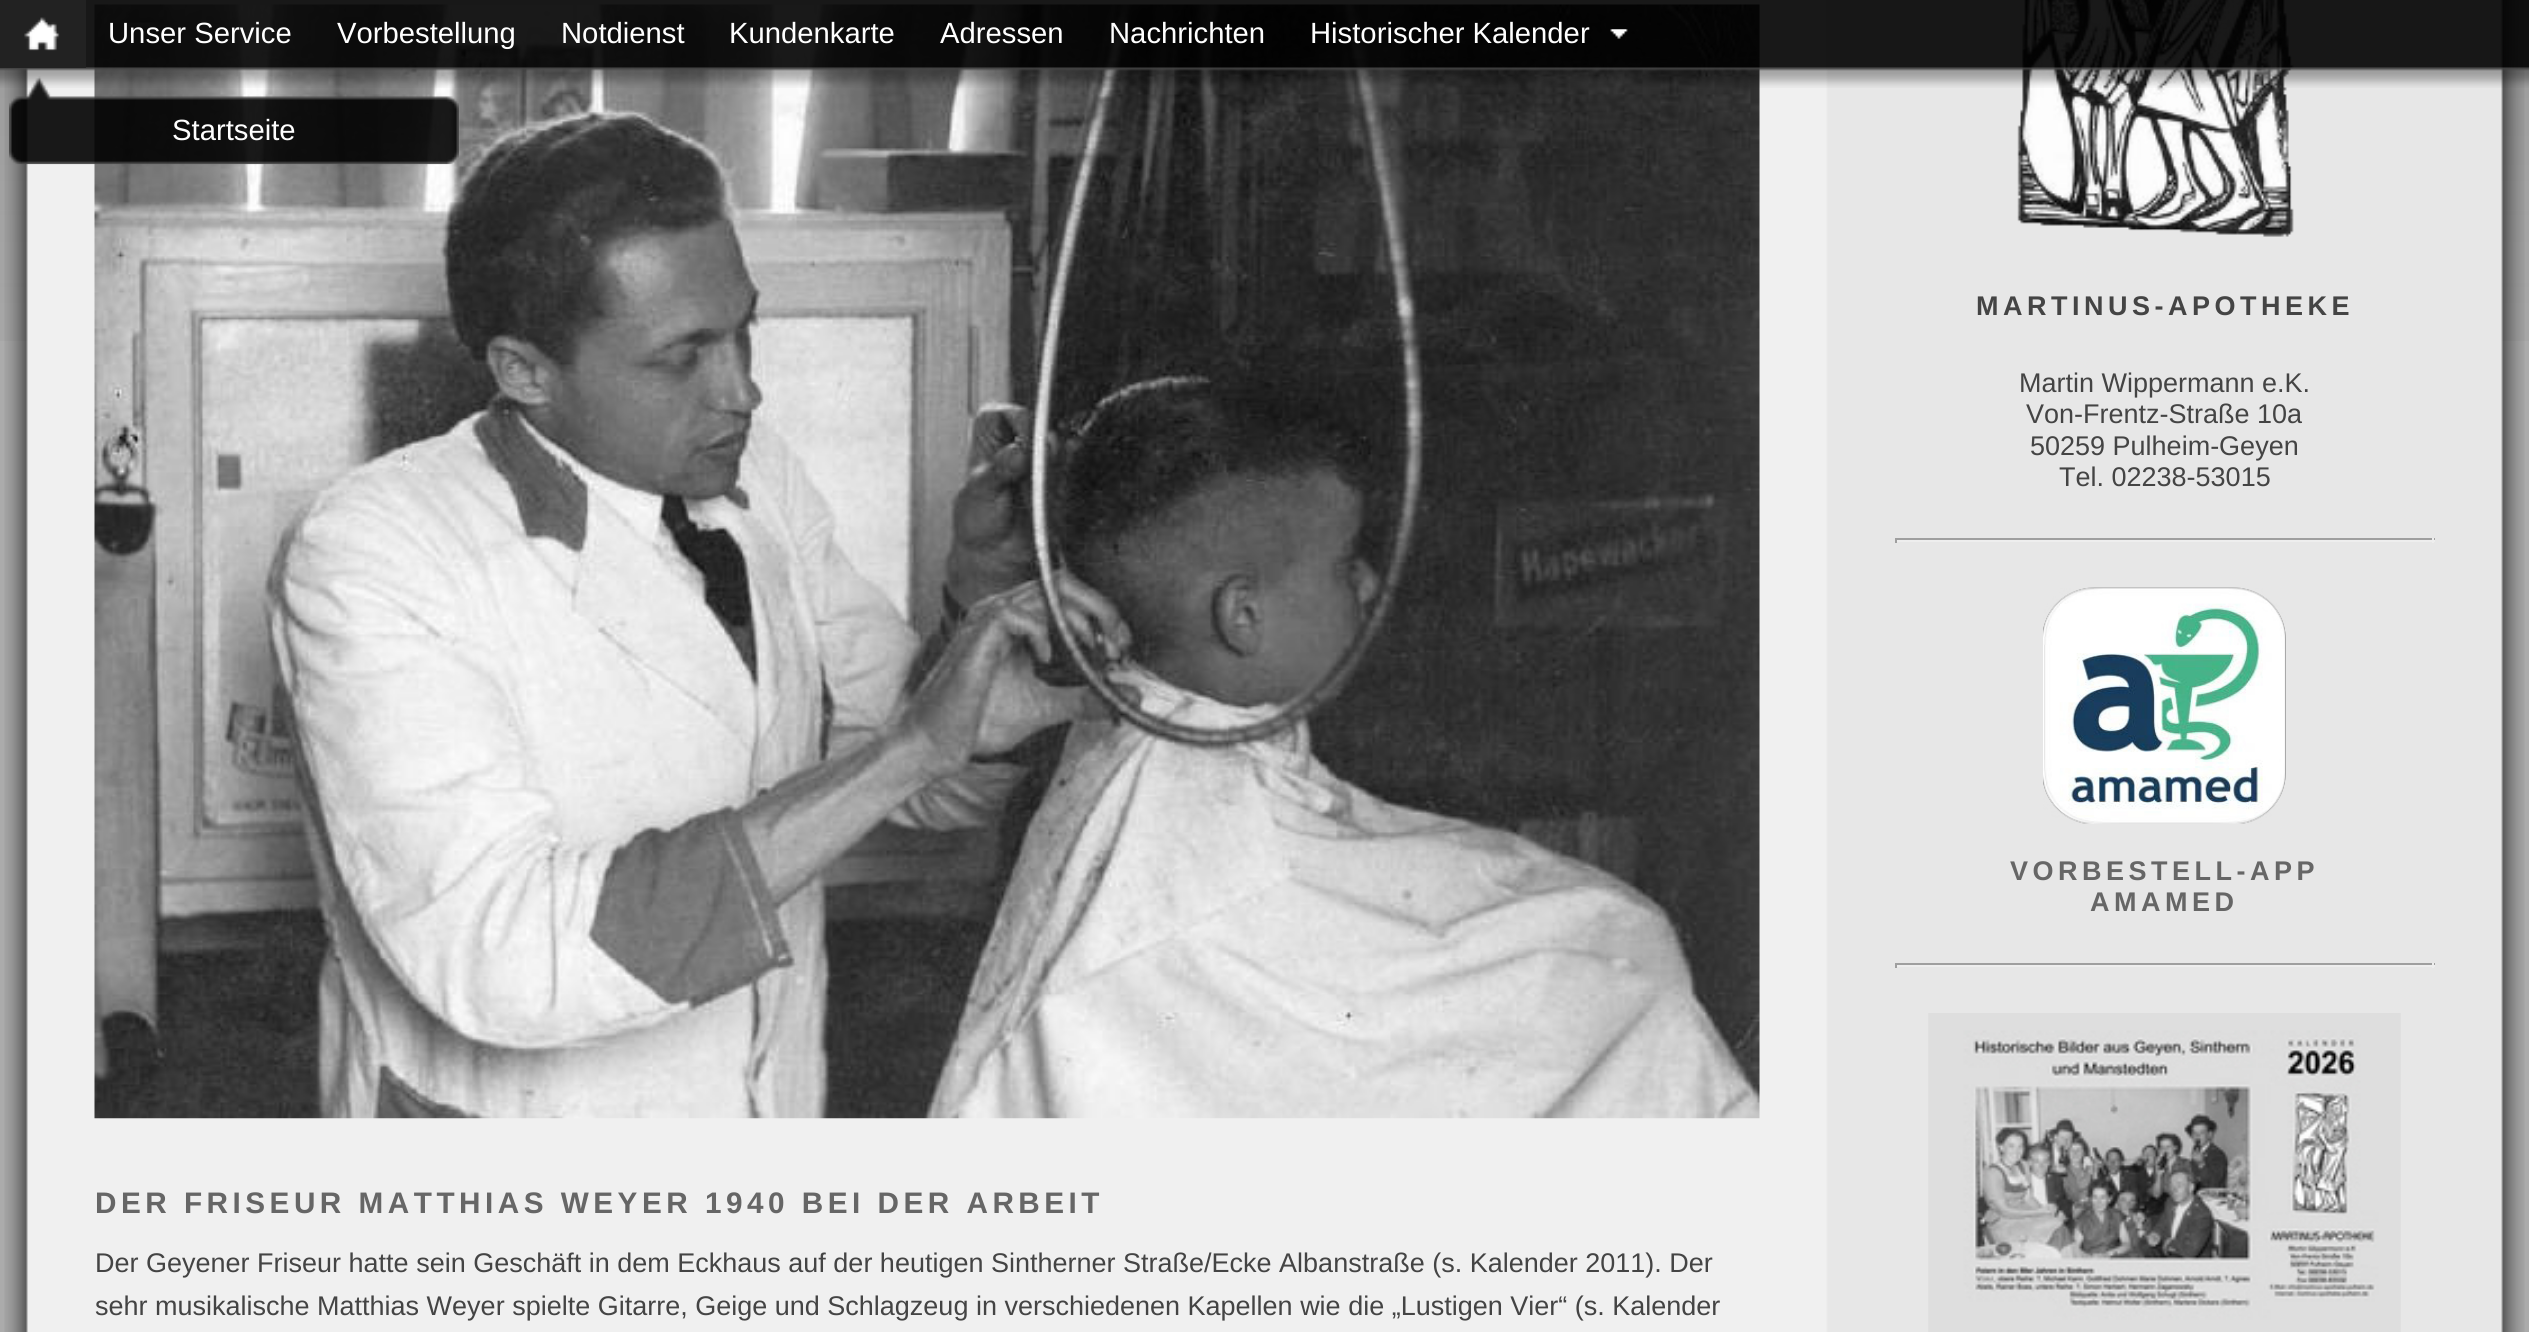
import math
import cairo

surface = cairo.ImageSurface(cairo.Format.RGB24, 2529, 1332)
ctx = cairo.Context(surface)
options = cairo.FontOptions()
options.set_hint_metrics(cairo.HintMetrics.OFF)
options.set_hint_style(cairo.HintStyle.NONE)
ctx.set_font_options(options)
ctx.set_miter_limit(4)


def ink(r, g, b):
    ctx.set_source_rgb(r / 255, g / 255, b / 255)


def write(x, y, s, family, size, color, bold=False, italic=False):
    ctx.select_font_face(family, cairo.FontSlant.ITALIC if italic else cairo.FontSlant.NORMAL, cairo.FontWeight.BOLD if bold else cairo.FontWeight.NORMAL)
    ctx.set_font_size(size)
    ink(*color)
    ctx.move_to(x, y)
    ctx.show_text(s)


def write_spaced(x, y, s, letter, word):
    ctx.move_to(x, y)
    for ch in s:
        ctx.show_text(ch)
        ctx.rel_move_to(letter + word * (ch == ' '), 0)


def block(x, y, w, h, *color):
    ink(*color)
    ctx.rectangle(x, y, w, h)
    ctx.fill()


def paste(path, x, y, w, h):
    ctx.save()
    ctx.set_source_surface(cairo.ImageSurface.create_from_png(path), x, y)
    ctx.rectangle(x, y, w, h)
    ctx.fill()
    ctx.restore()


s1 = dict(family="Liberation Sans", size=29.25, color=(255, 255, 255))
s2 = dict(family="Liberation Sans", size=27, color=(68, 68, 68))

ink(171, 171, 171)
ctx.paint()
paste("pic1.png", 0, 0, 2529, 341)
paste("pic6.png", 4, 0, 2521, 1332)
paste("pic7.png", 2017, 0, 277, 237)
paste("pic10.png", 94, 4, 1666, 1115)
paste("pic2.png", 0, 0, 2529, 88)
write(108, 43, "Unser Service", **s1)
write(337, 43, "Vorbestellung", **s1)
write(561, 43, "Notdienst", **s1)
write(729, 43, "Kundenkarte", **s1)
write(940, 43, "Adressen", **s1)
write(1109, 43, "Nachrichten", **s1)
paste("pic3.png", 1610, 29, 18, 10)
write(1310, 43, "Historischer Kalender", **s1)
block(0, 0, 86, 68, 34, 34, 34)
paste("pic4.png", 24, 17, 36, 34)
paste("pic5.png", 9, 76, 450, 89)
write(172, 140, "Startseite", **s1)
ctx.select_font_face("Liberation Sans", cairo.FontSlant.NORMAL, cairo.FontWeight.BOLD)
ctx.set_font_size(27)
ink(68, 68, 68)
write_spaced(1976, 315, "MARTINUS-APOTHEKE", 4.5, 0)
write(2019, 392, "Martin Wippermann e.K.", **s2)
write(2026, 423, "Von-Frentz-Straße 10a", **s2)
write(2030, 455, "50259 Pulheim-Geyen", **s2)
write(2059, 486, "Tel. 02238-53015", **s2)
block(1895, 538, 540, 2, 159, 159, 159)
block(2432, 538, 2, 5, 238, 238, 238)
block(1895, 540, 540, 2, 238, 238, 238)
block(1895, 538, 2, 5, 159, 159, 159)
paste("pic8.png", 2043, 587, 243, 237)
ctx.select_font_face("Liberation Sans", cairo.FontSlant.NORMAL, cairo.FontWeight.BOLD)
ink(102, 102, 102)
write_spaced(2010, 880, "VORBESTELL-APP", 4.5, 0)
write_spaced(2090, 911, "AMAMED", 4.5, 0)
block(1895, 963, 540, 2, 159, 159, 159)
block(2432, 963, 2, 5, 238, 238, 238)
block(1895, 965, 540, 2, 238, 238, 238)
block(1895, 963, 2, 5, 159, 159, 159)
paste("pic9.png", 1928, 1013, 473, 319)
ctx.set_font_size(29.7)
ink(102, 102, 102)
write_spaced(95, 1213, "DER FRISEUR MATTHIAS WEYER 1940 BEI DER ARBEIT", 4.5, 0)
write(95, 1272, "Der Geyener Friseur hatte sein Geschäft in dem Eckhaus auf der heutigen Sintherner Straße/Ecke Albanstraße (s. Kalender 2011). Der", **s2)
write(95, 1315, "sehr musikalische Matthias Weyer spielte Gitarre, Geige und Schlagzeug in verschiedenen Kapellen wie die „Lustigen Vier“ (s. Kalender", **s2)
surface.write_to_png("screenshot.png")
